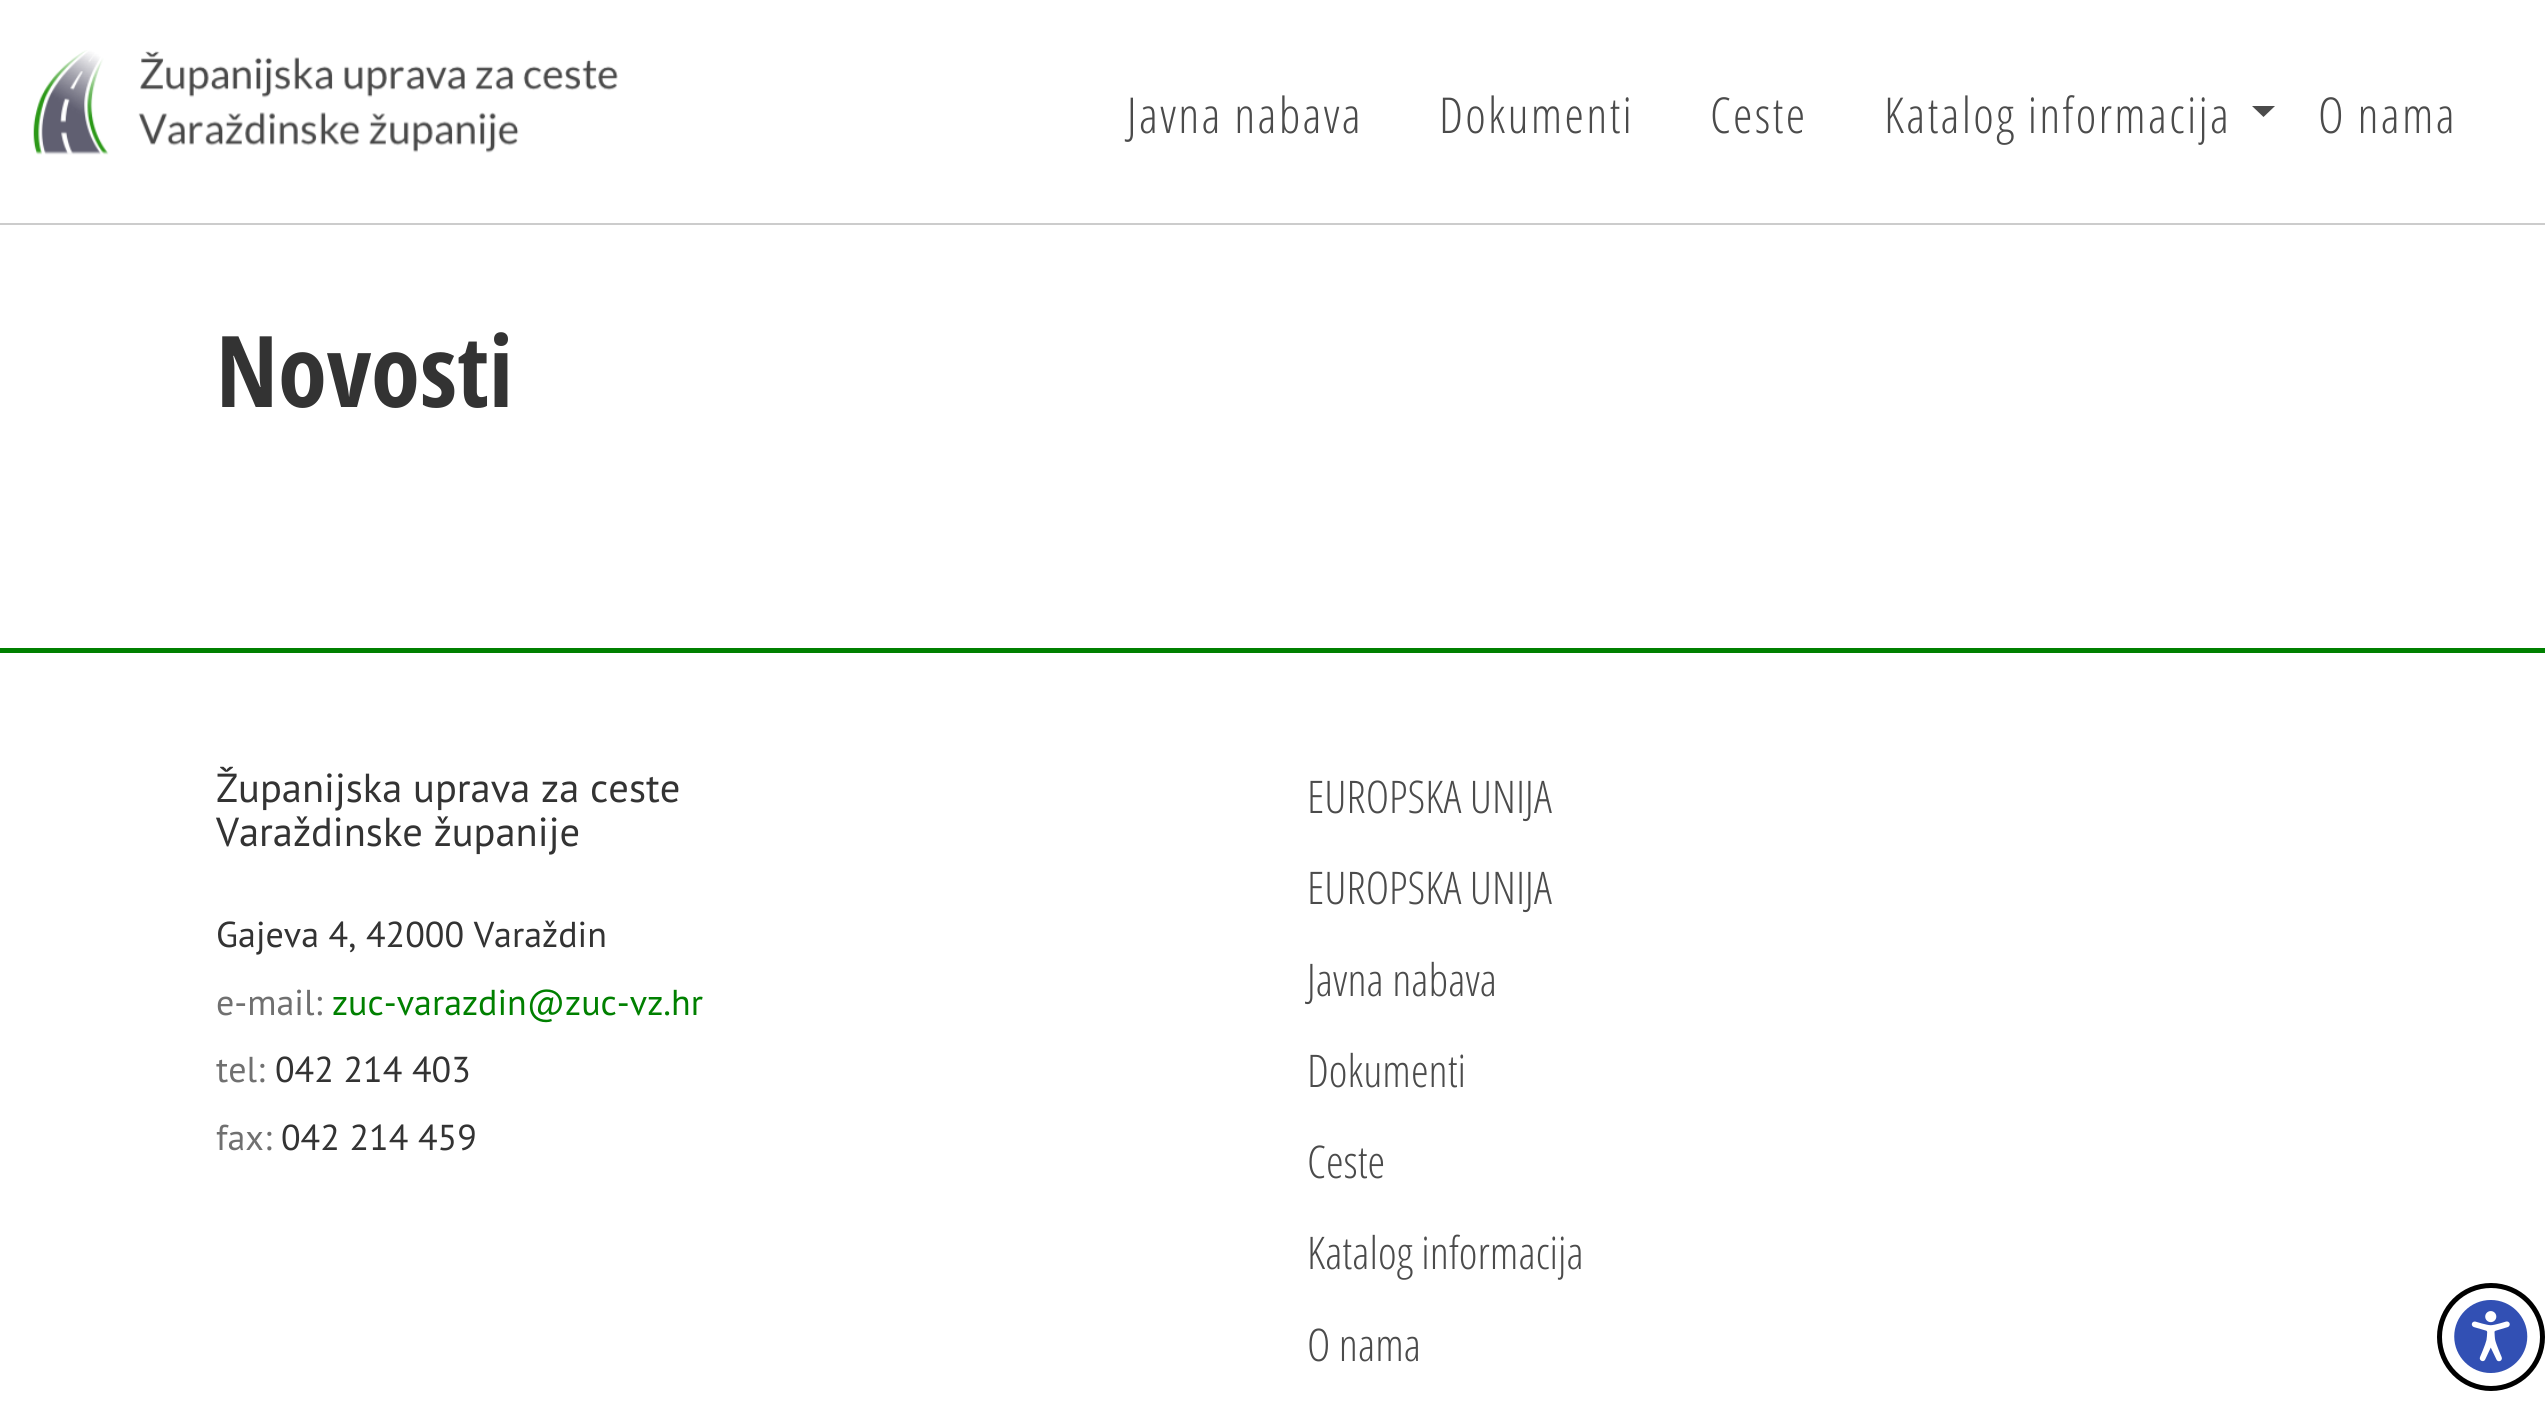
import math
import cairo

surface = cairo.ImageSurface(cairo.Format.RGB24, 2545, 1425)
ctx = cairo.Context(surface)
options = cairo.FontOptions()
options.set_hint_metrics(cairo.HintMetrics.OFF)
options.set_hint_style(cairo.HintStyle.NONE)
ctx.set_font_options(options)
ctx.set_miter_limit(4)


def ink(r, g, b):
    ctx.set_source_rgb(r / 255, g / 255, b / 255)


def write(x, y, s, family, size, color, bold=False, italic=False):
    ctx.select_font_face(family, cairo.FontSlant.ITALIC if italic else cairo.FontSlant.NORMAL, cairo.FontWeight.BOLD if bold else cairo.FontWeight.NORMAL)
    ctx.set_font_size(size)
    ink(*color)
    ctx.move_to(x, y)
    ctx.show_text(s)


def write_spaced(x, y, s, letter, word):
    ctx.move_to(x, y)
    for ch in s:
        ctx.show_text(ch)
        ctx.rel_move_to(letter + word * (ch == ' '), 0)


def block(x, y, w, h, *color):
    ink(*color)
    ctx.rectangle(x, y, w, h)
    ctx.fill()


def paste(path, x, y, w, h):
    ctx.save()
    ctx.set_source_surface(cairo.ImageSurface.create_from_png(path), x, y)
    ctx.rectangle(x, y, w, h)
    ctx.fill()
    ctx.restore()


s1 = dict(family="Open Sans Condensed", size=99, color=(51, 51, 51), bold=True)
s2 = dict(family="PT Sans", size=40.5, color=(51, 51, 51))
s3 = dict(family="PT Sans", size=36, color=(51, 51, 51))
s4 = dict(family="PT Sans", size=36, color=(112, 112, 112))
s5 = dict(family="PT Sans", size=36, color=(0, 128, 0))
s6 = dict(family="Open Sans Condensed Light", size=45, color=(75, 75, 75))

ink(255, 255, 255)
ctx.paint()
block(0, 223, 2545, 2, 204, 204, 204)
paste("pic1.png", 33, 50, 585, 105)
ctx.select_font_face("Open Sans Condensed Light")
ctx.set_font_size(49.5)
ink(75, 75, 75)
write_spaced(1127, 133, "Javna nabava", 2.25, 0)
write_spaced(1439, 133, "Dokumenti", 2.25, 0)
write_spaced(1710, 133, "Ceste", 2.25, 0)
write_spaced(1884, 133, "Katalog informacija", 2.25, 0)
ctx.new_path()
ctx.move_to(2252, 106)
ctx.line_to(2275, 106)
ctx.line_to(2263.5, 117)
ctx.close_path()
ctx.fill()
write_spaced(2318, 133, "O nama", 2.25, 0)
write(216, 407, "Novosti", **s1)
block(0, 648, 2545, 5, 0, 128, 0)
write(216, 802, "Županijska uprava za ceste", **s2)
write(216, 846, "Varaždinske županije", **s2)
write(216, 947, "Gajeva 4, 42000 Varaždin", **s3)
write(216, 1015, "e-mail:", **s4)
write(332, 1015, "zuc-varazdin@zuc-vz.hr", **s5)
write(216, 1082, "tel:", **s4)
write(275, 1082, "042 214 403", **s3)
write(216, 1150, "fax:", **s4)
write(281, 1150, "042 214 459", **s3)
write(1307, 813, "EUROPSKA UNIJA", **s6)
write(1307, 904, "EUROPSKA UNIJA", **s6)
write(1307, 996, "Javna nabava", **s6)
write(1307, 1087, "Dokumenti", **s6)
write(1307, 1178, "Ceste", **s6)
write(1307, 1269, "Katalog informacija", **s6)
write(1307, 1361, "O nama", **s6)
paste("pic2.png", 2454, 1300, 74, 73)
ctx.arc(2491, 1337, 51.5, 0, 2 * math.pi)
ink(0, 0, 0)
ctx.set_line_width(5)
ctx.stroke()
surface.write_to_png("screenshot.png")
